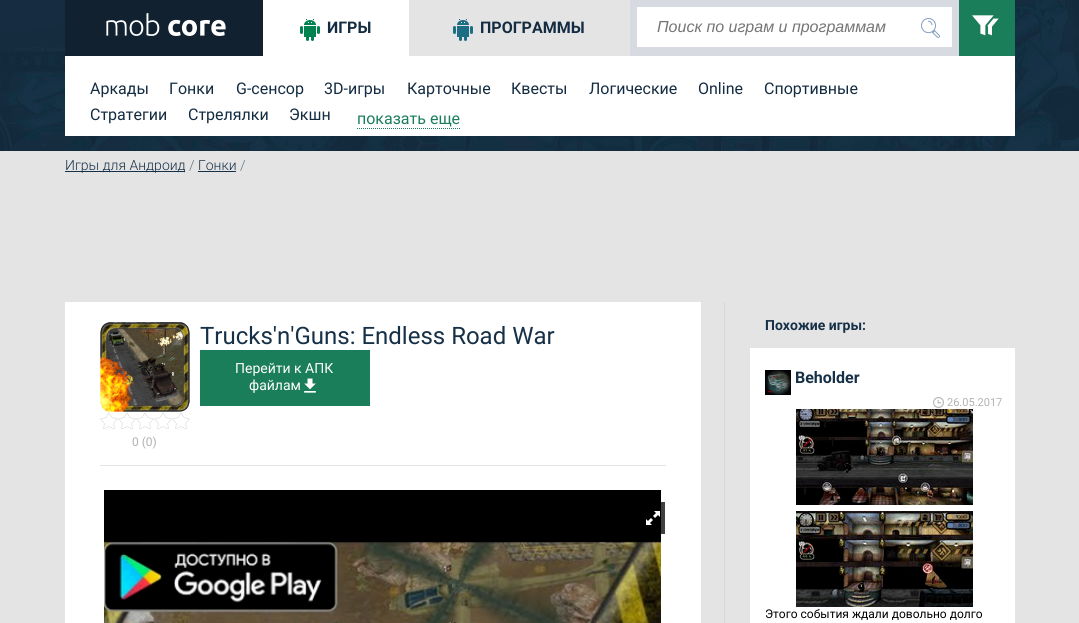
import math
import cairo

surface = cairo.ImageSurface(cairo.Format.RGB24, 1079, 623)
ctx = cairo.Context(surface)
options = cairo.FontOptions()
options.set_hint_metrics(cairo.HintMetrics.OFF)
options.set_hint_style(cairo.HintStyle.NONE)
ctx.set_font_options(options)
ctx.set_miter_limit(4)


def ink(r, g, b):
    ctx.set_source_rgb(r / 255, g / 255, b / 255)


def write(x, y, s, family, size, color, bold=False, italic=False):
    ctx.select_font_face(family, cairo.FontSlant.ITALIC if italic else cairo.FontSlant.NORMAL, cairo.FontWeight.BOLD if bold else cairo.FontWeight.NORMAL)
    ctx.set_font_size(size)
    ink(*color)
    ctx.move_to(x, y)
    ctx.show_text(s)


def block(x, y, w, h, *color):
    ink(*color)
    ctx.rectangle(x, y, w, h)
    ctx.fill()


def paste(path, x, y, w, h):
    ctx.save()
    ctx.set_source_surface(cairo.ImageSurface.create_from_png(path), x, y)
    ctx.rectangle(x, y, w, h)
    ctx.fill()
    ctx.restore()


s1 = dict(family="Roboto", size=16, color=(20, 44, 65), bold=True)
s2 = dict(family="Roboto", size=16, color=(20, 44, 65))
s3 = dict(family="Roboto", size=16, color=(27, 126, 90))
s4 = dict(family="Liberation Sans", size=16, color=(117, 117, 117), italic=True)
s5 = dict(family="Roboto Light", size=14, color=(22, 48, 71))
s6 = dict(family="Roboto Light", size=14, color=(93, 110, 126))
s7 = dict(family="Roboto", size=24, color=(22, 48, 71))
s8 = dict(family="Roboto", size=14, color=(255, 255, 255))
s9 = dict(family="Roboto", size=12, color=(178, 178, 178))
s10 = dict(family="Roboto", size=14, color=(22, 48, 71), bold=True)
s11 = dict(family="Roboto", size=16, color=(22, 48, 71), bold=True)
s12 = dict(family="Roboto", size=11, color=(178, 178, 178))
s13 = dict(family="Roboto", size=12, color=(0, 0, 0))

ink(228, 228, 228)
ctx.paint()
paste("pic1.png", 0, 0, 1079, 151)
block(263, 0, 146, 56, 255, 255, 255)
paste("pic2.png", 300, 19, 20, 22)
write(327, 33, "ИГРЫ", **s1)
block(409, 0, 221, 56, 228, 228, 228)
paste("pic3.png", 453, 19, 20, 22)
write(480, 33, "ПРОГРАММЫ", **s1)
block(65, 56, 950, 80, 255, 255, 255)
write(90, 94, "Аркады", **s2)
write(169, 94, "Гонки", **s2)
write(236, 94, "G-сенсор", **s2)
write(324, 94, "3D-игры", **s2)
write(407, 94, "Карточные", **s2)
write(511, 94, "Квесты", **s2)
write(589, 94, "Логические", **s2)
write(698, 94, "Online", **s2)
write(764, 94, "Спортивные", **s2)
write(90, 120, "Стратегии", **s2)
write(188, 120, "Стрелялки", **s2)
write(289, 120, "Экшн", **s2)
ctx.new_path()
ctx.move_to(357, 128.5)
ctx.line_to(460, 128.5)
ink(27, 126, 90)
ctx.set_line_width(1)
ctx.set_dash([1, 1])
ctx.stroke()
write(357, 124, "показать еще", **s3)
block(65, 0, 198, 56, 17, 33, 48)
paste("pic4.png", 106, 13, 120, 23)
block(630, 0, 329, 56, 216, 218, 225)
block(637, 7, 315, 40, 255, 255, 255)
write(657, 32, "Поиск по играм и программам", **s4)
paste("pic5.png", 921, 18, 19, 20)
block(959, 0, 56, 56, 27, 126, 90)
paste("pic6.png", 972, 15, 27, 21)
block(65, 171, 120, 1, 22, 48, 71)
write(65, 170, "Игры для Андроид", **s5)
write(189, 170, "/", **s6)
write(198, 170, "Гонки", **s5)
block(198, 171, 38, 1, 22, 48, 71)
write(240, 170, "/", **s6)
block(724, 302, 1, 321, 215, 215, 215)
block(65, 302, 636, 321, 255, 255, 255)
block(100, 465, 566, 1, 228, 228, 228)
write(200, 344, "Trucks'n'Guns: Endless Road War", **s7)
block(200, 350, 170, 56, 27, 126, 90)
write(235, 373, "Перейти к АПК", **s8)
write(249, 390, "файлам", **s8)
paste("pic7.png", 304, 378, 12, 15)
paste("pic8.png", 100, 322, 90, 90)
paste("pic9.png", 100, 412, 18, 17)
paste("pic9.png", 118, 412, 18, 17)
paste("pic9.png", 136, 412, 18, 17)
paste("pic9.png", 154, 412, 18, 17)
paste("pic9.png", 172, 412, 18, 17)
write(132, 446, "0 (0)", **s9)
paste("pic10.png", 104, 490, 557, 133)
ctx.set_source_rgba(0, 0, 0, 0.75)
ctx.new_path()
ctx.move_to(639, 502)
ctx.line_to(665, 502)
ctx.line_to(665, 534)
ctx.line_to(639, 534)
ctx.curve_to(638, 534, 637, 533, 637, 532)
ctx.line_to(637, 504)
ctx.curve_to(637, 503, 638, 502, 639, 502)
ctx.close_path()
ctx.fill()
paste("pic11.png", 646, 511, 14, 14)
write(765, 330, "Похожие игры:", **s10)
block(750, 348, 265, 275, 255, 255, 255)
paste("pic12.png", 765, 370, 26, 25)
write(795, 383, "Beholder", **s11)
paste("pic13.png", 933, 397, 11, 11)
write(947, 406, "26.05.2017", **s12)
paste("pic14.png", 796, 409, 177, 198)
write(765, 618, "Этого события ждали довольно долго", **s13)
surface.write_to_png("screenshot.png")
